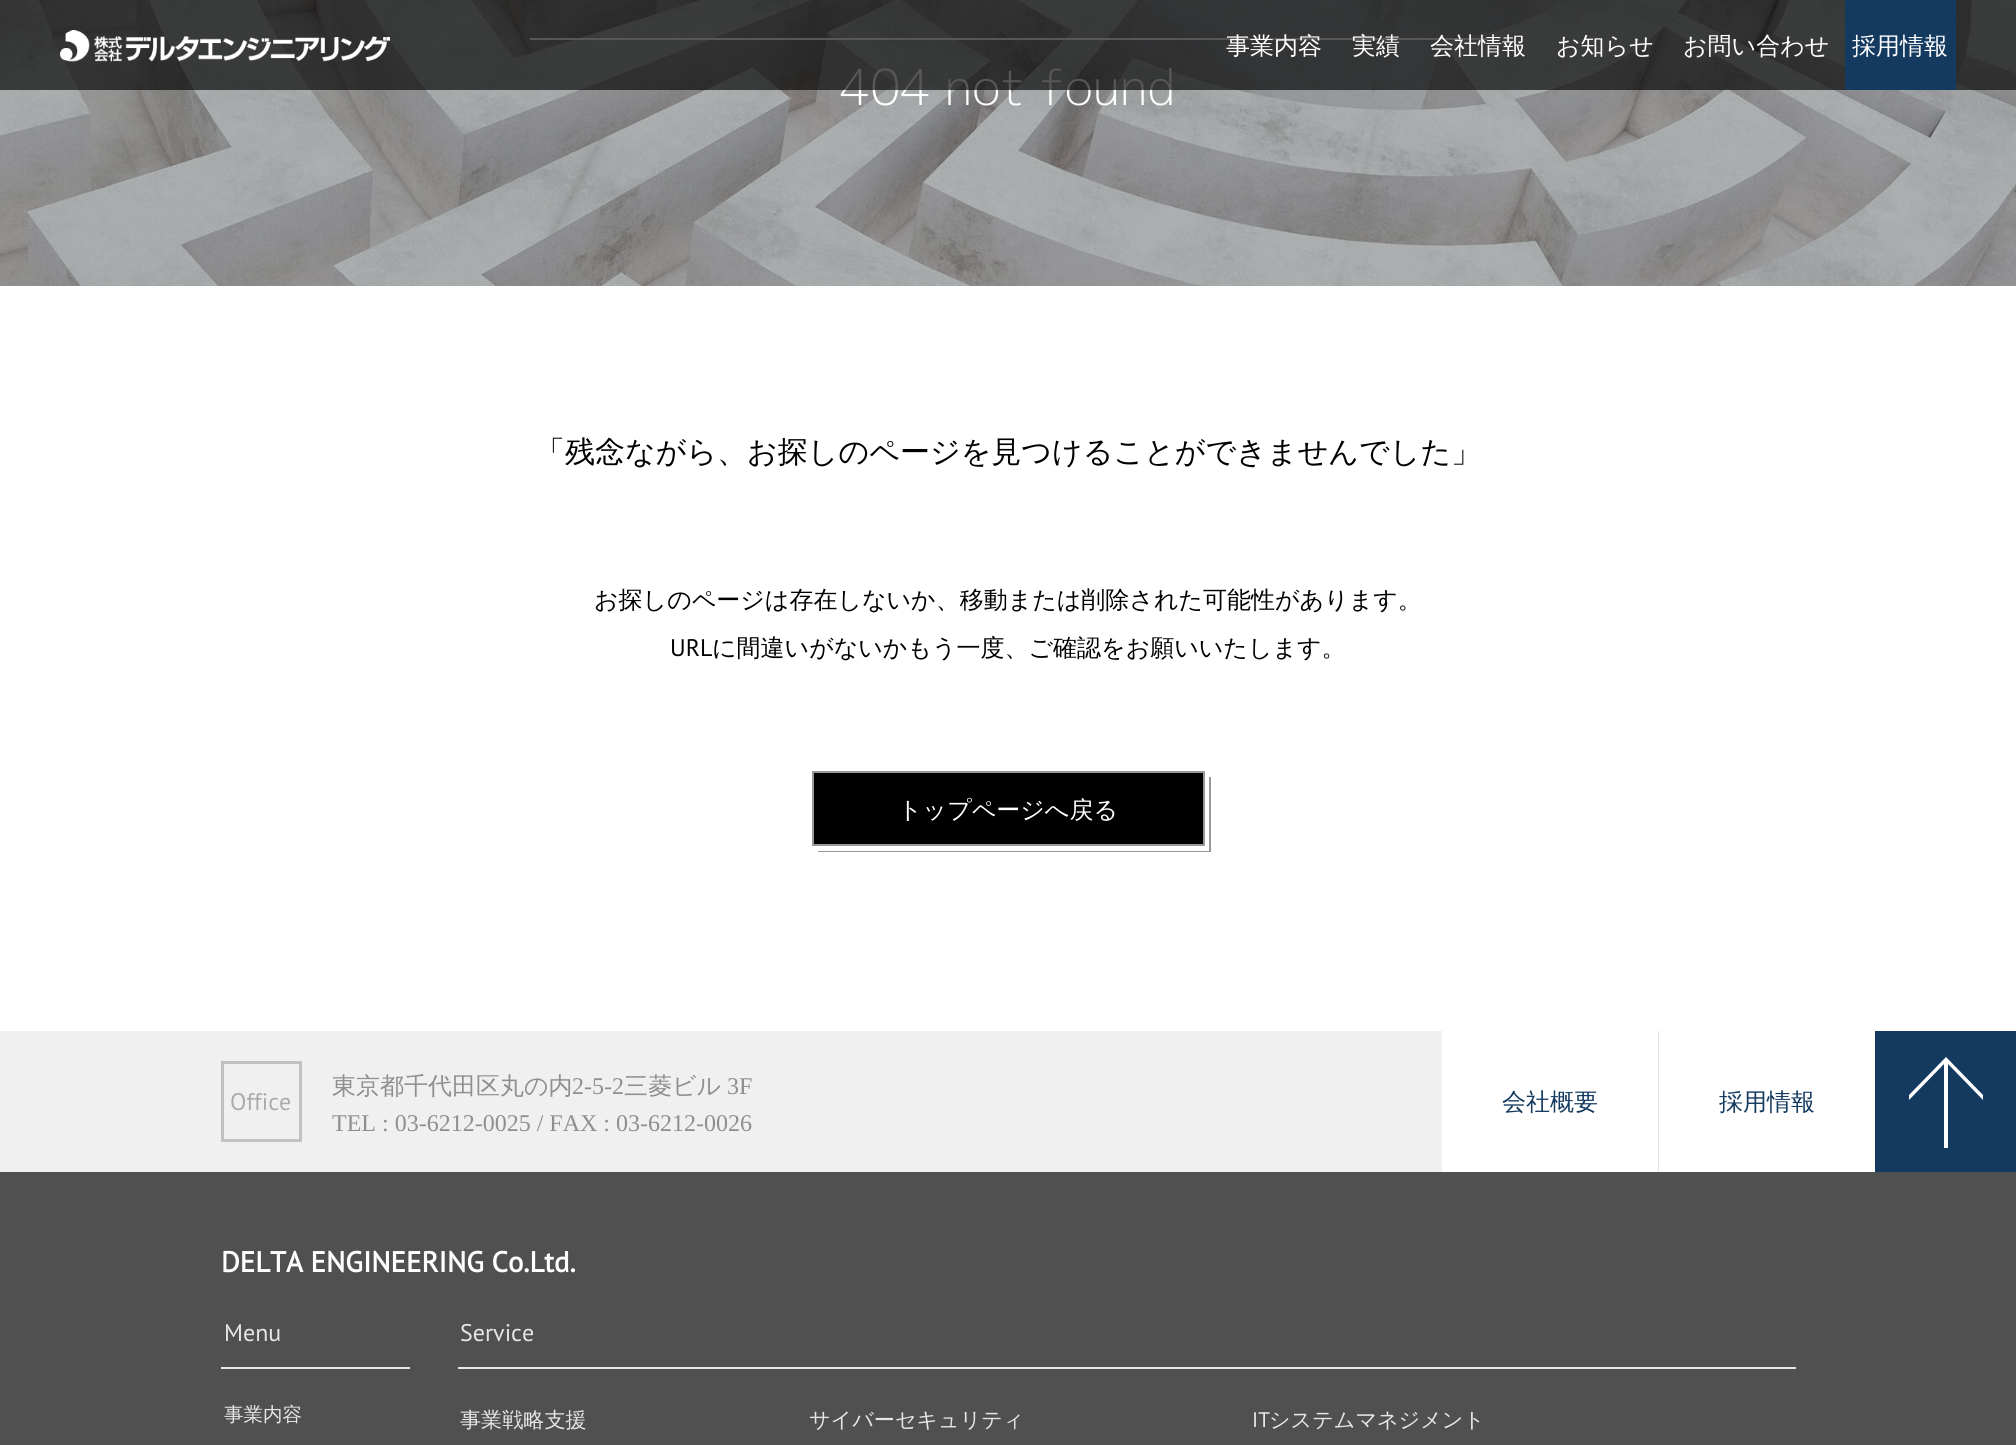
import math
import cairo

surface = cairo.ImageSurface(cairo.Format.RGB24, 2016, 1445)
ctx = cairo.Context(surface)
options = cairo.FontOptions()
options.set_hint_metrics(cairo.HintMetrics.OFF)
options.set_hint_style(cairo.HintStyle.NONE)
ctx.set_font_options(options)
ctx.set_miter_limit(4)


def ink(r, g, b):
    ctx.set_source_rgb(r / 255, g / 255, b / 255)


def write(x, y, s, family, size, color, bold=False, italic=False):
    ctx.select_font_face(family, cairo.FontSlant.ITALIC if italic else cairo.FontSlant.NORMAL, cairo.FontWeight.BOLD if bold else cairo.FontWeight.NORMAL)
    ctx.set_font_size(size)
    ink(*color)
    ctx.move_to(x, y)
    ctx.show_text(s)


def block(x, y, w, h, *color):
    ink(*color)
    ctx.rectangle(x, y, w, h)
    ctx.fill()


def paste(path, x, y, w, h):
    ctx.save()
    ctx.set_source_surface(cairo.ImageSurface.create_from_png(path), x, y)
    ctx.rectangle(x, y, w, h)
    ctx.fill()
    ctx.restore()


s1 = dict(family="M PLUS 1p Light", size=49.5, color=(255, 255, 255))
s2 = dict(family="WenQuanYi Zen Hei Medium", size=24, color=(255, 255, 255))
s3 = dict(family="WenQuanYi Zen Hei Medium", size=30, color=(0, 0, 0))
s4 = dict(family="WenQuanYi Zen Hei Medium", size=24, color=(0, 0, 0))
s5 = dict(family="PT Sans", size=24, color=(0, 0, 0))
s6 = dict(family="PT Sans", size=24, color=(171, 171, 171))
s7 = dict(family="WenQuanYi Zen Hei Medium", size=24, color=(143, 143, 143))
s8 = dict(family="Liberation Serif", size=24, color=(143, 143, 143))
s9 = dict(family="WenQuanYi Zen Hei Medium", size=24, color=(20, 58, 96))
s10 = dict(family="PT Sans", size=28.75, color=(255, 255, 255), bold=True)
s11 = dict(family="PT Sans", size=24, color=(230, 230, 230))
s12 = dict(family="WenQuanYi Zen Hei Medium", size=19.5, color=(230, 230, 230))
s13 = dict(family="WenQuanYi Zen Hei Medium", size=21.1, color=(230, 230, 230))
s14 = dict(family="PT Sans", size=21.1, color=(230, 230, 230))

ink(255, 255, 255)
ctx.paint()
paste("pic2.png", 0, 0, 2016, 286)
block(530, 38, 957, 2, 255, 255, 255)
write(840, 105, "404 not found", **s1)
ctx.set_source_rgba(0, 0, 0, 0.66)
ctx.rectangle(0, 0, 2016, 90)
ctx.fill()
paste("pic1.png", 60, 30, 330, 32)
write(1226, 54, "事業内容", **s2)
write(1352, 54, "実績", **s2)
write(1430, 54, "会社情報", **s2)
write(1556, 54, "お知らせ", **s2)
write(1683, 54, "お問い合わせ", **s2)
block(1845, 0, 111, 90, 20, 58, 96)
write(1852, 54, "採用情報", **s2)
write(535, 462, "「残念ながら、お探しのページを見つけることができませんでした」", **s3)
write(594, 608, "お探しのページは存在しないか、移動または削除された可能性があります。", **s4)
write(670, 656, "URL", **s5)
write(712, 656, "に間違いがないかもう一度、ご確認をお願いいたします。", **s4)
ink(153, 153, 153)
ctx.new_path()
ctx.move_to(818, 846)
ctx.line_to(818, 852)
ctx.line_to(1211, 852)
ctx.line_to(1211, 777)
ctx.line_to(1204, 777)
ctx.line_to(1204, 846)
ctx.close_path()
ctx.fill()
ink(255, 255, 255)
ctx.new_path()
ctx.move_to(816, 846)
ctx.line_to(816, 851)
ctx.line_to(1209, 851)
ctx.line_to(1209, 776)
ctx.line_to(1204, 776)
ctx.line_to(1204, 846)
ctx.close_path()
ctx.fill()
ink(0, 0, 0)
ctx.rectangle(813, 772, 391, 73)
ctx.fill_preserve()
ink(153, 153, 153)
ctx.stroke()
write(898, 818, "トップページへ戻る", **s2)
block(0, 1031, 1442, 141, 240, 240, 240)
ctx.rectangle(222.5, 1062.5, 78, 78)
ink(193, 193, 193)
ctx.set_line_width(3)
ctx.stroke()
write(230, 1110, "Office", **s6)
write(332, 1094, "東京都千代田区丸の内", **s7)
write(572, 1094, "2-5-2", **s8)
write(624, 1094, "三菱ビル", **s7)
write(727, 1094, "3F", **s8)
write(332, 1131, "TEL : 03-6212-0025 / FAX : 03-6212-0026", **s8)
block(1658, 1031, 1, 141, 226, 226, 226)
write(1502, 1110, "会社概要", **s9)
write(1719, 1110, "採用情報", **s9)
block(1875, 1031, 141, 141, 20, 58, 96)
ink(255, 255, 255)
ctx.set_fill_rule(cairo.FillRule.EVEN_ODD)
ctx.new_path()
ctx.move_to(1909, 1095)
ctx.line_to(1909, 1100)
ctx.line_to(1944, 1064)
ctx.line_to(1944, 1148)
ctx.line_to(1948, 1148)
ctx.line_to(1948, 1064)
ctx.line_to(1983, 1100)
ctx.line_to(1983, 1095)
ctx.line_to(1946, 1057)
ctx.close_path()
ctx.fill()
block(0, 1172, 2016, 273, 80, 80, 80)
write(221, 1272, "DELTA ENGINEERING Co.Ltd.", **s10)
block(221, 1367, 189, 2, 230, 230, 230)
write(224, 1341, "Menu", **s11)
write(224, 1421, "事業内容", **s12)
block(458, 1367, 1338, 2, 230, 230, 230)
write(460, 1341, "Service", **s11)
write(460, 1427, "事業戦略支援", **s13)
write(809, 1427, "サイバーセキュリティ", **s13)
write(1252, 1427, "IT", **s14)
write(1269, 1427, "システムマネジメント", **s13)
surface.write_to_png("screenshot.png")
